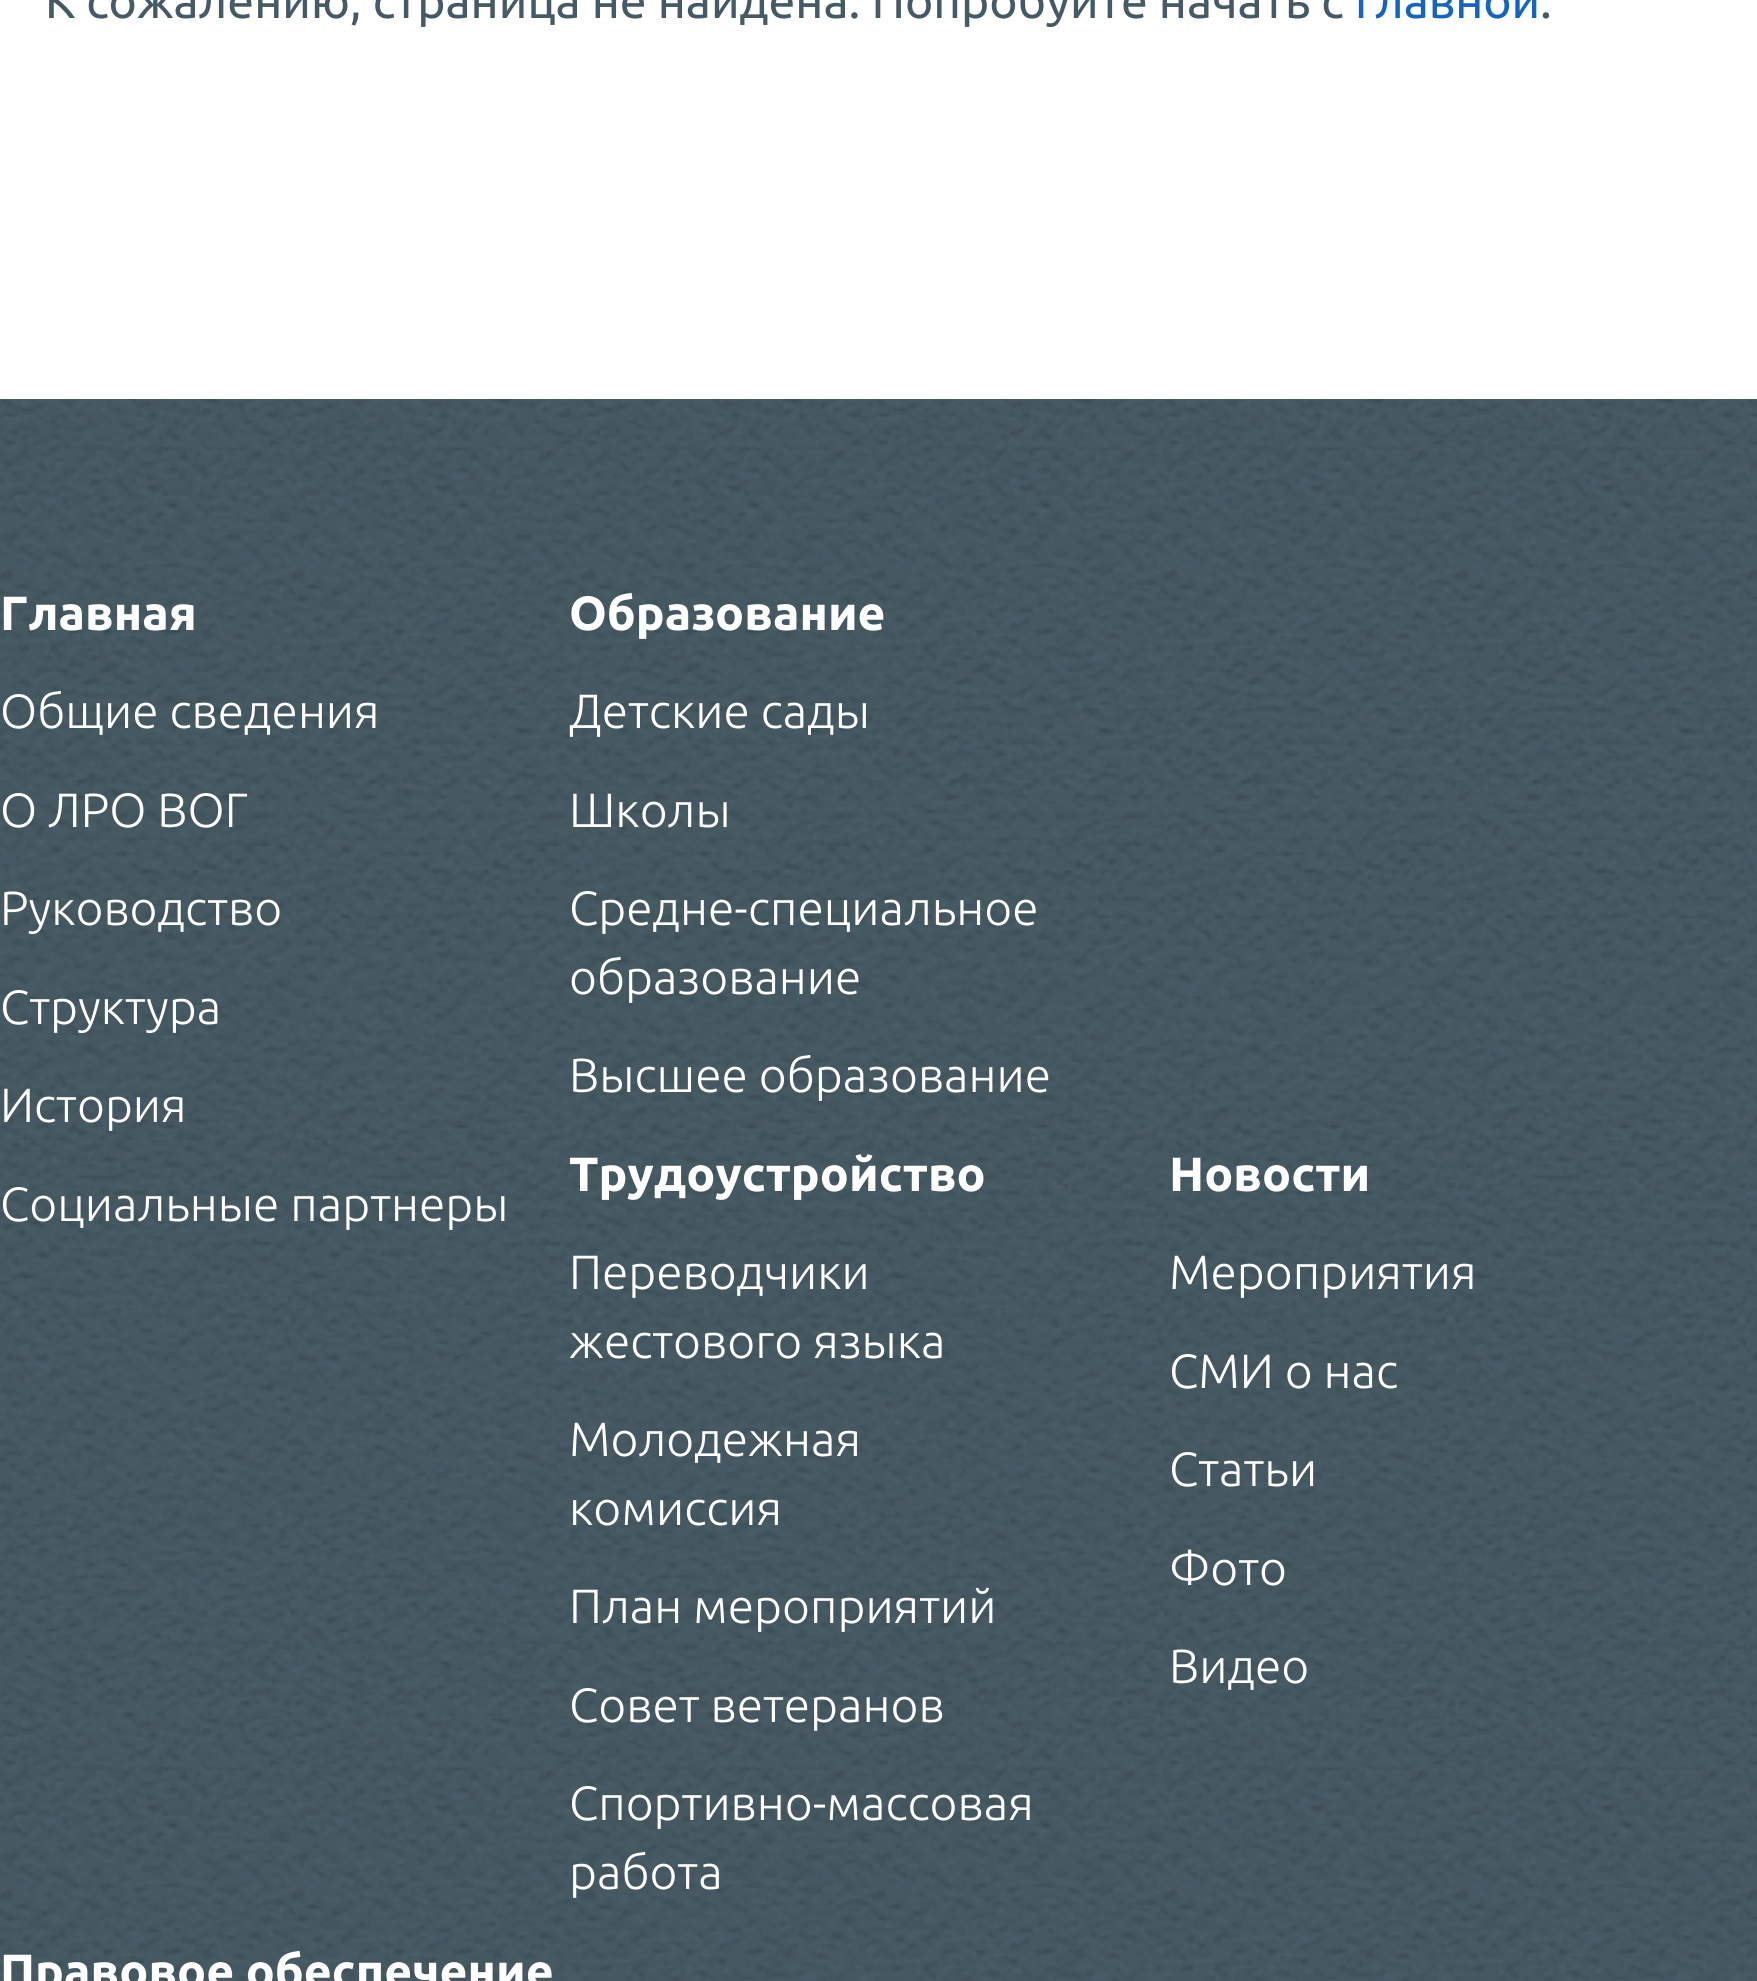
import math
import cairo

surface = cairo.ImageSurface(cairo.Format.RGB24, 1757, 1981)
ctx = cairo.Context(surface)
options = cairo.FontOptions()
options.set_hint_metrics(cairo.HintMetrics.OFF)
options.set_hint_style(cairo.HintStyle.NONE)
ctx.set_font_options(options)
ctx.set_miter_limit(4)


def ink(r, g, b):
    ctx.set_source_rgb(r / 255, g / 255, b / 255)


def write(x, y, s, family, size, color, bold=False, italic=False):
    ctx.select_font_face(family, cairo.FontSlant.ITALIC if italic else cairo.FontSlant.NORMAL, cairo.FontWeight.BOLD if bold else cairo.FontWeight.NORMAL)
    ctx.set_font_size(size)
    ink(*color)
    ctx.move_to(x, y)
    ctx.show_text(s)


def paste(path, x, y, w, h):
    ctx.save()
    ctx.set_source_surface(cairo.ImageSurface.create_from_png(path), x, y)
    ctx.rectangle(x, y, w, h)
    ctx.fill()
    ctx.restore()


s1 = dict(family="Ubuntu", size=48, color=(69, 90, 100))
s2 = dict(family="Ubuntu", size=48, color=(21, 100, 192))
s3 = dict(family="Ubuntu", size=48, color=(255, 255, 255), bold=True)
s4 = dict(family="Ubuntu Light", size=48, color=(255, 255, 255))

ink(255, 255, 255)
ctx.paint()
write(45, 18, "К сожалению, страница не найдена. Попробуйте начать с", **s1)
write(1355, 18, "главной", **s2)
write(1540, 18, ".", **s1)
paste("pic1.png", 0, 399, 1757, 1582)
write(0, 630, "Главная", **s3)
write(0, 728, "Общие сведения", **s4)
write(0, 827, "О ЛРО ВОГ", **s4)
write(0, 925, "Руководство", **s4)
write(0, 1024, "Структура", **s4)
write(0, 1122, "История", **s4)
write(0, 1221, "Социальные партнеры", **s4)
write(569, 630, "Образование", **s3)
write(569, 728, "Детские сады", **s4)
write(569, 827, "Школы", **s4)
write(569, 925, "Средне-специальное", **s4)
write(569, 994, "образование", **s4)
write(569, 1092, "Высшее образование", **s4)
write(569, 1191, "Трудоустройство", **s3)
write(569, 1289, "Переводчики", **s4)
write(569, 1358, "жестового языка", **s4)
write(569, 1456, "Молодежная", **s4)
write(569, 1525, "комиссия", **s4)
write(569, 1623, "План мероприятий", **s4)
write(569, 1722, "Совет ветеранов", **s4)
write(569, 1820, "Спортивно-массовая", **s4)
write(569, 1889, "работа", **s4)
write(1169, 1191, "Новости", **s3)
write(1169, 1289, "Мероприятия", **s4)
write(1169, 1388, "СМИ о нас", **s4)
write(1169, 1486, "Статьи", **s4)
write(1169, 1585, "Фото", **s4)
write(1169, 1683, "Видео", **s4)
write(0, 1988, "Правовое обеспечение", **s3)
surface.write_to_png("screenshot.png")
